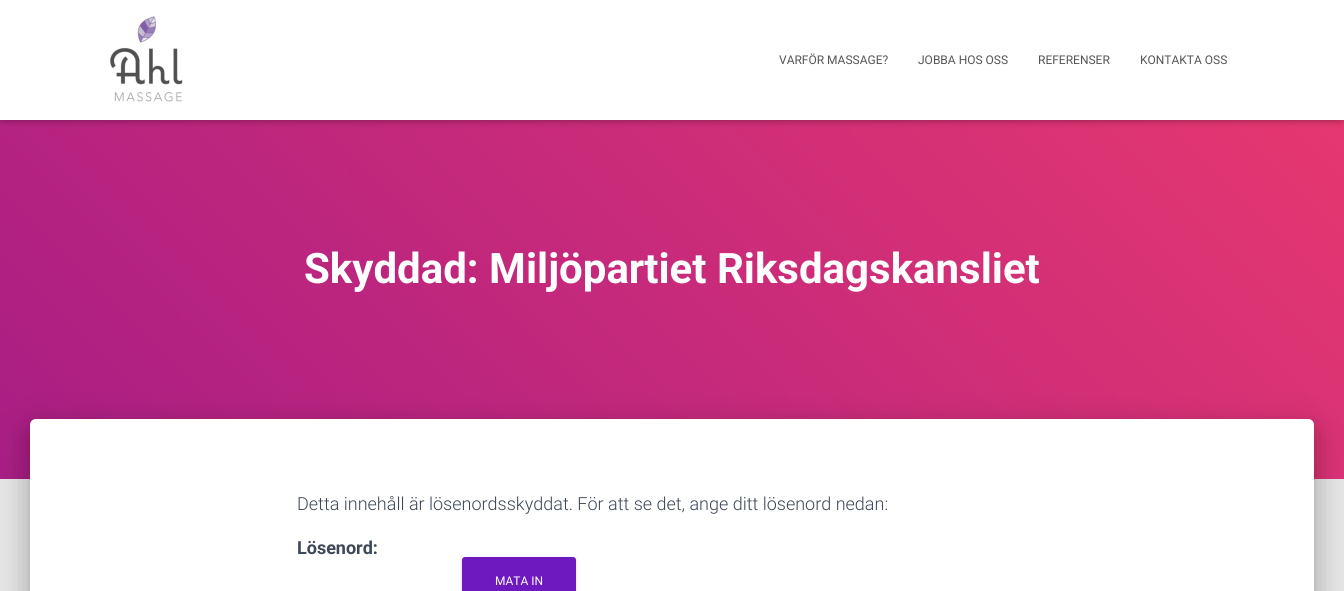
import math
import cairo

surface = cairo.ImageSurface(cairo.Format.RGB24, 1344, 591)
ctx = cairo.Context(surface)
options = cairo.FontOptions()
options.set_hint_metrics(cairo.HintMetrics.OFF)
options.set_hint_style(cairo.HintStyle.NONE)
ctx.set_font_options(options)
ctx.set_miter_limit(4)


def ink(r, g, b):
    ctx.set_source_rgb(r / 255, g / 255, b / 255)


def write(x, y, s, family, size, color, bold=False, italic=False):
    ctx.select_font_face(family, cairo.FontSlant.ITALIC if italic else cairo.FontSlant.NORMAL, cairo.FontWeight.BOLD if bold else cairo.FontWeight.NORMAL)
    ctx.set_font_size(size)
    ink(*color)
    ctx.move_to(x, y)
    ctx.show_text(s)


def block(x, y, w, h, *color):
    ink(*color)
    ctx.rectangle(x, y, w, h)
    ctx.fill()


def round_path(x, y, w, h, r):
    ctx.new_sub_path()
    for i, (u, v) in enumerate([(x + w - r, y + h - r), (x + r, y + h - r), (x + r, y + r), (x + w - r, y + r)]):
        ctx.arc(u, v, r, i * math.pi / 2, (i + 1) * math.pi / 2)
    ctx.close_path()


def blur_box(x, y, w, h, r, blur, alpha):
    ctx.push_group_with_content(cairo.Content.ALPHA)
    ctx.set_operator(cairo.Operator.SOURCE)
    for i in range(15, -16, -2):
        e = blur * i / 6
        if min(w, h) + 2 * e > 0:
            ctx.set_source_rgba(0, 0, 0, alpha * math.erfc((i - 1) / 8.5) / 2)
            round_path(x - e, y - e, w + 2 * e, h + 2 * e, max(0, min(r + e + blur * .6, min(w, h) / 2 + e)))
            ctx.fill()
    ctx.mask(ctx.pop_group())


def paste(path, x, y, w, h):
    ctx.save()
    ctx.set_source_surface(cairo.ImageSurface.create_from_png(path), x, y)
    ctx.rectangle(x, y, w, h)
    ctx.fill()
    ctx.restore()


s1 = dict(family="Roboto", size=12, color=(85, 85, 85))
s2 = dict(family="Roboto", size=42, color=(255, 255, 255), bold=True)
s3 = dict(family="Roboto Light", size=18, color=(60, 72, 88))
s4 = dict(family="Roboto", size=18, color=(60, 72, 88), bold=True)
s5 = dict(family="Roboto", size=12, color=(255, 255, 255))

ink(229, 229, 229)
ctx.paint()
gradient = cairo.LinearGradient(216, 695, 1128, -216)
gradient.add_color_stop_rgba(0, 0.659, 0.114, 0.518, 1)
gradient.add_color_stop_rgba(1, 0.918, 0.224, 0.435, 1)
ctx.set_source(gradient)
ctx.rectangle(0, 120, 1344, 359)
ctx.fill()
ink(0, 0, 0)
blur_box(2, 6, 1340, 116, 0, 2.5, 0.1)
blur_box(0, 1, 1344, 120, 0, 5, 0.12)
blur_box(6, 7, 1332, 108, 0, 5, 0.42)
block(0, 0, 1344, 120, 255, 255, 255)
paste("pic1.png", 110, 16, 73, 86)
write(779, 64, "VARFÖR MASSAGE?", **s1)
write(918, 64, "JOBBA HOS OSS", **s1)
write(1038, 64, "REFERENSER", **s1)
write(1140, 64, "KONTAKTA OSS", **s1)
write(304, 283, "Skyddad: Miljöpartiet Riksdagskansliet", **s2)
ink(0, 0, 0)
blur_box(35, 432, 1274, 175, 1, 5, 0.2)
blur_box(25, 420, 1294, 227, 11, 15, 0.12)
blur_box(28, 433, 1288, 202, 8, 12, 0.14)
ink(255, 255, 255)
ctx.new_path()
ctx.move_to(36, 419)
ctx.line_to(1308, 419)
ctx.curve_to(1311.5, 419, 1314, 421.5, 1314, 425)
ctx.line_to(1314, 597)
ctx.line_to(30, 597)
ctx.line_to(30, 425)
ctx.curve_to(30, 421.5, 32.5, 419, 36, 419)
ctx.close_path()
ctx.fill()
write(297, 510, "Detta innehåll är lösenordsskyddat. För att se det, ange ditt lösenord nedan:", **s3)
write(297, 554, "Lösenord:", **s4)
ink(110, 24, 191)
blur_box(462, 558, 114, 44, 3, 2.5, 0.12)
blur_box(462, 559, 114, 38, 3, 1, 0.14)
ink(110, 24, 191)
round_path(462, 557, 114, 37, 3)
ctx.fill()
write(495, 585, "MATA IN", **s5)
surface.write_to_png("screenshot.png")
